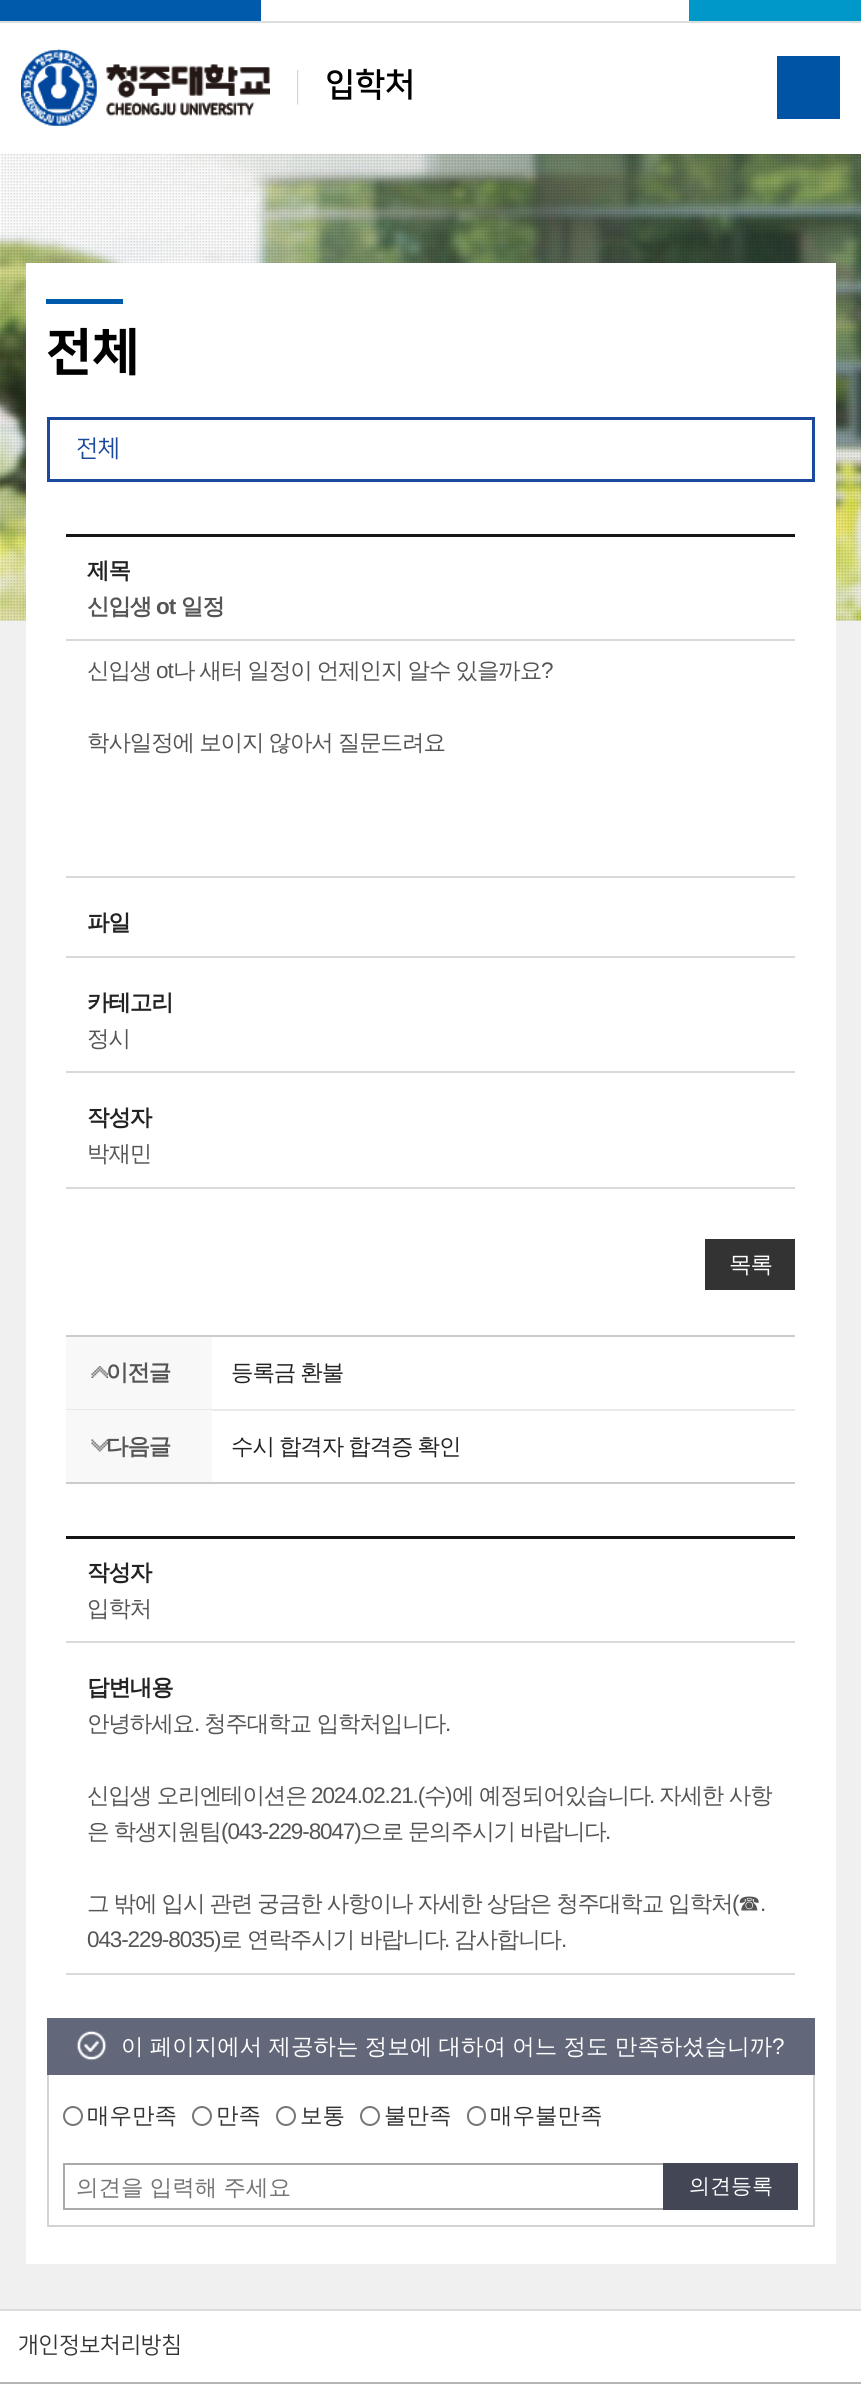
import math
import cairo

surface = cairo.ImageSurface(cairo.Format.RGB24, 861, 2399)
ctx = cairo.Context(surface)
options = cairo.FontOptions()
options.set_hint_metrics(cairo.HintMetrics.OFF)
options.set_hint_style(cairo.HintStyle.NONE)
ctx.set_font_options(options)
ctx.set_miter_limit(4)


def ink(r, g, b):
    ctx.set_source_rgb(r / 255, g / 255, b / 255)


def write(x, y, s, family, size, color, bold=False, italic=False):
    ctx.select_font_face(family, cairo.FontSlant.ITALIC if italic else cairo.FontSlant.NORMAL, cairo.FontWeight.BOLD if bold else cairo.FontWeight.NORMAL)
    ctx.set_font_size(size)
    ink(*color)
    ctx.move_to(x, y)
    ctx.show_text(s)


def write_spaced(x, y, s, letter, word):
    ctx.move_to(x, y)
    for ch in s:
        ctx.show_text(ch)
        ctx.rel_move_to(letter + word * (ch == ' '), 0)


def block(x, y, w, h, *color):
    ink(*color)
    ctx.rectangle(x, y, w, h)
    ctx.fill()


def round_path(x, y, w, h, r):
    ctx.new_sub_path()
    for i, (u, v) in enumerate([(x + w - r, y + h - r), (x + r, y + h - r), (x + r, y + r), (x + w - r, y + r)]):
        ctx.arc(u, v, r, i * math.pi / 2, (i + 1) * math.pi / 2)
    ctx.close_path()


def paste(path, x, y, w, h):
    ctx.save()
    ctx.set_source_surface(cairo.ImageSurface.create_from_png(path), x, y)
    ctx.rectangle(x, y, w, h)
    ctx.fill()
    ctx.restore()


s1 = dict(family="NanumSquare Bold", size=33, color=(0, 0, 0), bold=True)
s2 = dict(family="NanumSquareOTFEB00", size=51, color=(0, 0, 0), bold=True)
s3 = dict(family="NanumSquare", size=24, color=(27, 73, 155))
s4 = dict(family="Liberation Sans", size=22.5, color=(255, 255, 255))
s5 = dict(family="WenQuanYi Zen Hei Medium", size=22.5, color=(51, 51, 51))
s6 = dict(family="WenQuanYi Zen Hei Medium", size=21, color=(255, 255, 255))
s7 = dict(family="NanumSquare", size=22.5, color=(51, 51, 51))

ink(255, 255, 255)
ctx.paint()
block(0, 21, 861, 2, 221, 221, 221)
block(0, 0, 261, 21, 0, 90, 171)
block(689, 0, 172, 21, 0, 152, 201)
paste("pic1.png", 21, 49, 278, 77)
paste("pic2.png", 21, 49, 249, 77)
write(325, 95, "입학처", **s1)
block(777, 56, 63, 63, 0, 84, 166)
block(0, 620, 861, 1689, 240, 240, 240)
paste("pic3.png", 0, 154, 861, 467)
block(0, 2309, 861, 2, 219, 219, 219)
block(26, 263, 810, 2001, 255, 255, 255)
block(46, 299, 77, 5, 0, 90, 171)
write(46, 368, "전체", **s2)
ctx.rectangle(48.5, 418.5, 765, 62)
ink(27, 73, 155)
ctx.set_line_width(3)
ctx.stroke()
write(76, 456, "전체", **s3)
block(66, 534, 729, 3, 21, 21, 21)
ctx.select_font_face("WenQuanYi Zen Hei", cairo.FontSlant.NORMAL, cairo.FontWeight.BOLD)
ctx.set_font_size(22.5)
ink(34, 34, 34)
write_spaced(87, 578, "제목", -1.1, 0)
block(66, 639, 729, 2, 217, 217, 217)
ink(85, 85, 85)
write_spaced(87, 614, "신입생", -1.1, 0)
ctx.select_font_face("Liberation Sans", cairo.FontSlant.NORMAL, cairo.FontWeight.BOLD)
write_spaced(156, 614, "ot", -1.1, 0)
ctx.select_font_face("WenQuanYi Zen Hei", cairo.FontSlant.NORMAL, cairo.FontWeight.BOLD)
write_spaced(181, 614, "일정", -1.1, 0)
block(66, 876, 729, 2, 217, 217, 217)
ctx.select_font_face("WenQuanYi Zen Hei Medium")
ink(85, 85, 85)
write_spaced(87, 678, "신입생", -1.1, 0)
ctx.select_font_face("Liberation Sans")
write_spaced(156, 678, "ot", -1.1, 0)
ctx.select_font_face("WenQuanYi Zen Hei Medium")
write_spaced(173, 678, "나 새터 일정이 언제인지 알수 있을까요", -1.1, -0.5)
ctx.select_font_face("Liberation Sans")
write_spaced(541, 678, "?", -1.1, 0)
ctx.select_font_face("WenQuanYi Zen Hei Medium")
write_spaced(87, 750, "학사일정에 보이지 않아서 질문드려요", -1.1, -0.5)
ctx.select_font_face("WenQuanYi Zen Hei", cairo.FontSlant.NORMAL, cairo.FontWeight.BOLD)
ink(34, 34, 34)
write_spaced(87, 930, "파일", -1.1, 0)
block(66, 956, 729, 2, 217, 217, 217)
ink(34, 34, 34)
write_spaced(87, 1010, "카테고리", -1.1, 0)
block(66, 1071, 729, 2, 217, 217, 217)
ctx.select_font_face("WenQuanYi Zen Hei Medium")
ink(85, 85, 85)
write_spaced(87, 1046, "정시", -1.1, 0)
ctx.select_font_face("WenQuanYi Zen Hei", cairo.FontSlant.NORMAL, cairo.FontWeight.BOLD)
ink(34, 34, 34)
write_spaced(87, 1125, "작성자", -1.1, 0)
block(66, 1187, 729, 2, 217, 217, 217)
ctx.select_font_face("WenQuanYi Zen Hei Medium")
ink(85, 85, 85)
write_spaced(87, 1161, "박재민", -1.1, 0)
block(705, 1239, 90, 51, 51, 51, 51)
ink(255, 255, 255)
write_spaced(729, 1272, "목록", -1.1, 0)
block(66, 1335, 729, 2, 204, 204, 204)
block(66, 1482, 729, 2, 204, 204, 204)
block(66, 1409, 729, 2, 233, 233, 233)
block(66, 1337, 146, 72, 248, 248, 248)
paste("pic4.png", 91, 1366, 17, 12)
ctx.select_font_face("WenQuanYi Zen Hei", cairo.FontSlant.NORMAL, cairo.FontWeight.BOLD)
ink(85, 85, 85)
write_spaced(106, 1380, "이전글", -1.1, 0)
ctx.select_font_face("WenQuanYi Zen Hei Medium")
ink(34, 34, 34)
write_spaced(231, 1380, "등록금 환불", -1.1, -0.5)
block(66, 1410, 146, 72, 248, 248, 248)
paste("pic5.png", 91, 1439, 17, 13)
ctx.select_font_face("WenQuanYi Zen Hei", cairo.FontSlant.NORMAL, cairo.FontWeight.BOLD)
ink(85, 85, 85)
write_spaced(106, 1454, "다음글", -1.1, 0)
ctx.select_font_face("WenQuanYi Zen Hei Medium")
ink(34, 34, 34)
write_spaced(231, 1454, "수시 합격자 합격증 확인", -1.1, -0.5)
block(66, 1536, 729, 3, 21, 21, 21)
ctx.select_font_face("WenQuanYi Zen Hei", cairo.FontSlant.NORMAL, cairo.FontWeight.BOLD)
ink(34, 34, 34)
write_spaced(87, 1580, "작성자", -1.1, 0)
block(66, 1641, 729, 2, 217, 217, 217)
ctx.select_font_face("WenQuanYi Zen Hei Medium")
ink(85, 85, 85)
write_spaced(87, 1616, "입학처", -1.1, 0)
ctx.select_font_face("WenQuanYi Zen Hei", cairo.FontSlant.NORMAL, cairo.FontWeight.BOLD)
ink(34, 34, 34)
write_spaced(87, 1695, "답변내용", -1.1, 0)
block(66, 1973, 729, 2, 217, 217, 217)
ctx.select_font_face("WenQuanYi Zen Hei Medium")
ink(85, 85, 85)
write_spaced(87, 1731, "안녕하세요", -1.1, 0)
ctx.select_font_face("Liberation Sans")
write_spaced(194, 1731, ".", -1.1, 0)
ctx.select_font_face("WenQuanYi Zen Hei Medium")
write_spaced(204, 1731, "청주대학교 입학처입니다", -1.1, 0)
ctx.select_font_face("Liberation Sans")
write_spaced(445, 1731, ".", -1.1, 0)
ctx.select_font_face("WenQuanYi Zen Hei Medium")
write_spaced(87, 1803, "신입생 오리엔테이션은", -1.1, 0)
ctx.select_font_face("Liberation Sans")
write_spaced(311, 1803, "2024.02.21.(", -1.1, 0)
ctx.select_font_face("WenQuanYi Zen Hei Medium")
write_spaced(424, 1803, "수", -1.1, 0)
ctx.select_font_face("Liberation Sans")
write_spaced(445, 1803, ")", -1.1, 0)
ctx.select_font_face("WenQuanYi Zen Hei Medium")
write_spaced(452, 1803, "에 예정되어있습니다", -1.1, 0)
ctx.select_font_face("Liberation Sans")
write_spaced(649, 1803, ".", -1.1, 0)
ctx.select_font_face("WenQuanYi Zen Hei Medium")
write_spaced(659, 1803, "자세한 사항", -1.1, 0)
write_spaced(87, 1839, "은 학생지원팀", -1.1, -0.5)
ctx.select_font_face("Liberation Sans")
write_spaced(221, 1839, "(043-229-8047)", -1.1, 0)
ctx.select_font_face("WenQuanYi Zen Hei Medium")
write_spaced(360, 1839, "으로 문의주시기 바랍니다", -1.1, -0.5)
ctx.select_font_face("Liberation Sans")
write_spaced(605, 1839, ".", -1.1, 0)
ctx.select_font_face("WenQuanYi Zen Hei Medium")
write_spaced(87, 1911, "그 밖에 입시 관련 궁금한 사항이나 자세한 상담은 청주대학교 입학처", -1.1, -0.5)
ctx.select_font_face("Liberation Sans")
write_spaced(732, 1911, "(", -1.1, 0)
ctx.select_font_face("WenQuanYi Zen Hei Medium")
write_spaced(738, 1911, "☎", -1.1, 0)
ctx.select_font_face("Liberation Sans")
write_spaced(760, 1911, ".", -1.1, 0)
write_spaced(87, 1947, "043-229-8035)", -1.1, 0)
ctx.select_font_face("WenQuanYi Zen Hei Medium")
write_spaced(220, 1947, "로 연락주시기 바랍니다", -1.1, 0)
ctx.select_font_face("Liberation Sans")
write_spaced(444, 1947, ".", -1.1, 0)
ctx.select_font_face("WenQuanYi Zen Hei Medium")
write_spaced(454, 1947, "감사합니다", -1.1, 0)
ctx.select_font_face("Liberation Sans")
write_spaced(561, 1947, ".", -1.1, 0)
block(47, 2018, 768, 57, 98, 103, 121)
paste("pic6.png", 76, 2030, 31, 31)
ctx.select_font_face("WenQuanYi Zen Hei Medium")
ink(255, 255, 255)
write_spaced(121, 2054, "이 페이지에서 제공하는 정보에 대하여 어느 정도 만족하셨습니까", 0, -0.5)
write(772, 2054, "?", **s4)
block(813, 2075, 2, 151, 211, 211, 211)
block(47, 2225, 768, 2, 211, 211, 211)
block(47, 2075, 2, 151, 211, 211, 211)
ctx.new_path()
ctx.arc(73, 2116, 9, 0, 2 * math.pi)
ink(118, 118, 118)
ctx.set_line_width(2)
ctx.stroke()
write(87, 2123, "매우만족", **s5)
ctx.new_path()
ctx.arc(202, 2116, 9, 0, 2 * math.pi)
ink(118, 118, 118)
ctx.stroke()
write(216, 2123, "만족", **s5)
ctx.new_path()
ctx.arc(286, 2116, 9, 0, 2 * math.pi)
ink(118, 118, 118)
ctx.stroke()
write(300, 2123, "보통", **s5)
ctx.new_path()
ctx.arc(370, 2116, 9, 0, 2 * math.pi)
ink(118, 118, 118)
ctx.stroke()
write(384, 2123, "불만족", **s5)
round_path(468, 2107, 17, 18, 8.5)
ink(118, 118, 118)
ctx.stroke()
write(490, 2123, "매우불만족", **s5)
block(63, 2163, 600, 2, 170, 170, 170)
block(63, 2208, 600, 2, 170, 170, 170)
block(63, 2163, 2, 47, 170, 170, 170)
ink(117, 117, 117)
write_spaced(76, 2195, "의견을 입력해 주세요", 0, -0.5)
block(663, 2163, 135, 47, 66, 70, 85)
write(689, 2193, "의견등록", **s6)
block(0, 2382, 861, 2, 181, 181, 181)
write(18, 2352, "개인정보처리방침", **s7)
surface.write_to_png("screenshot.png")
